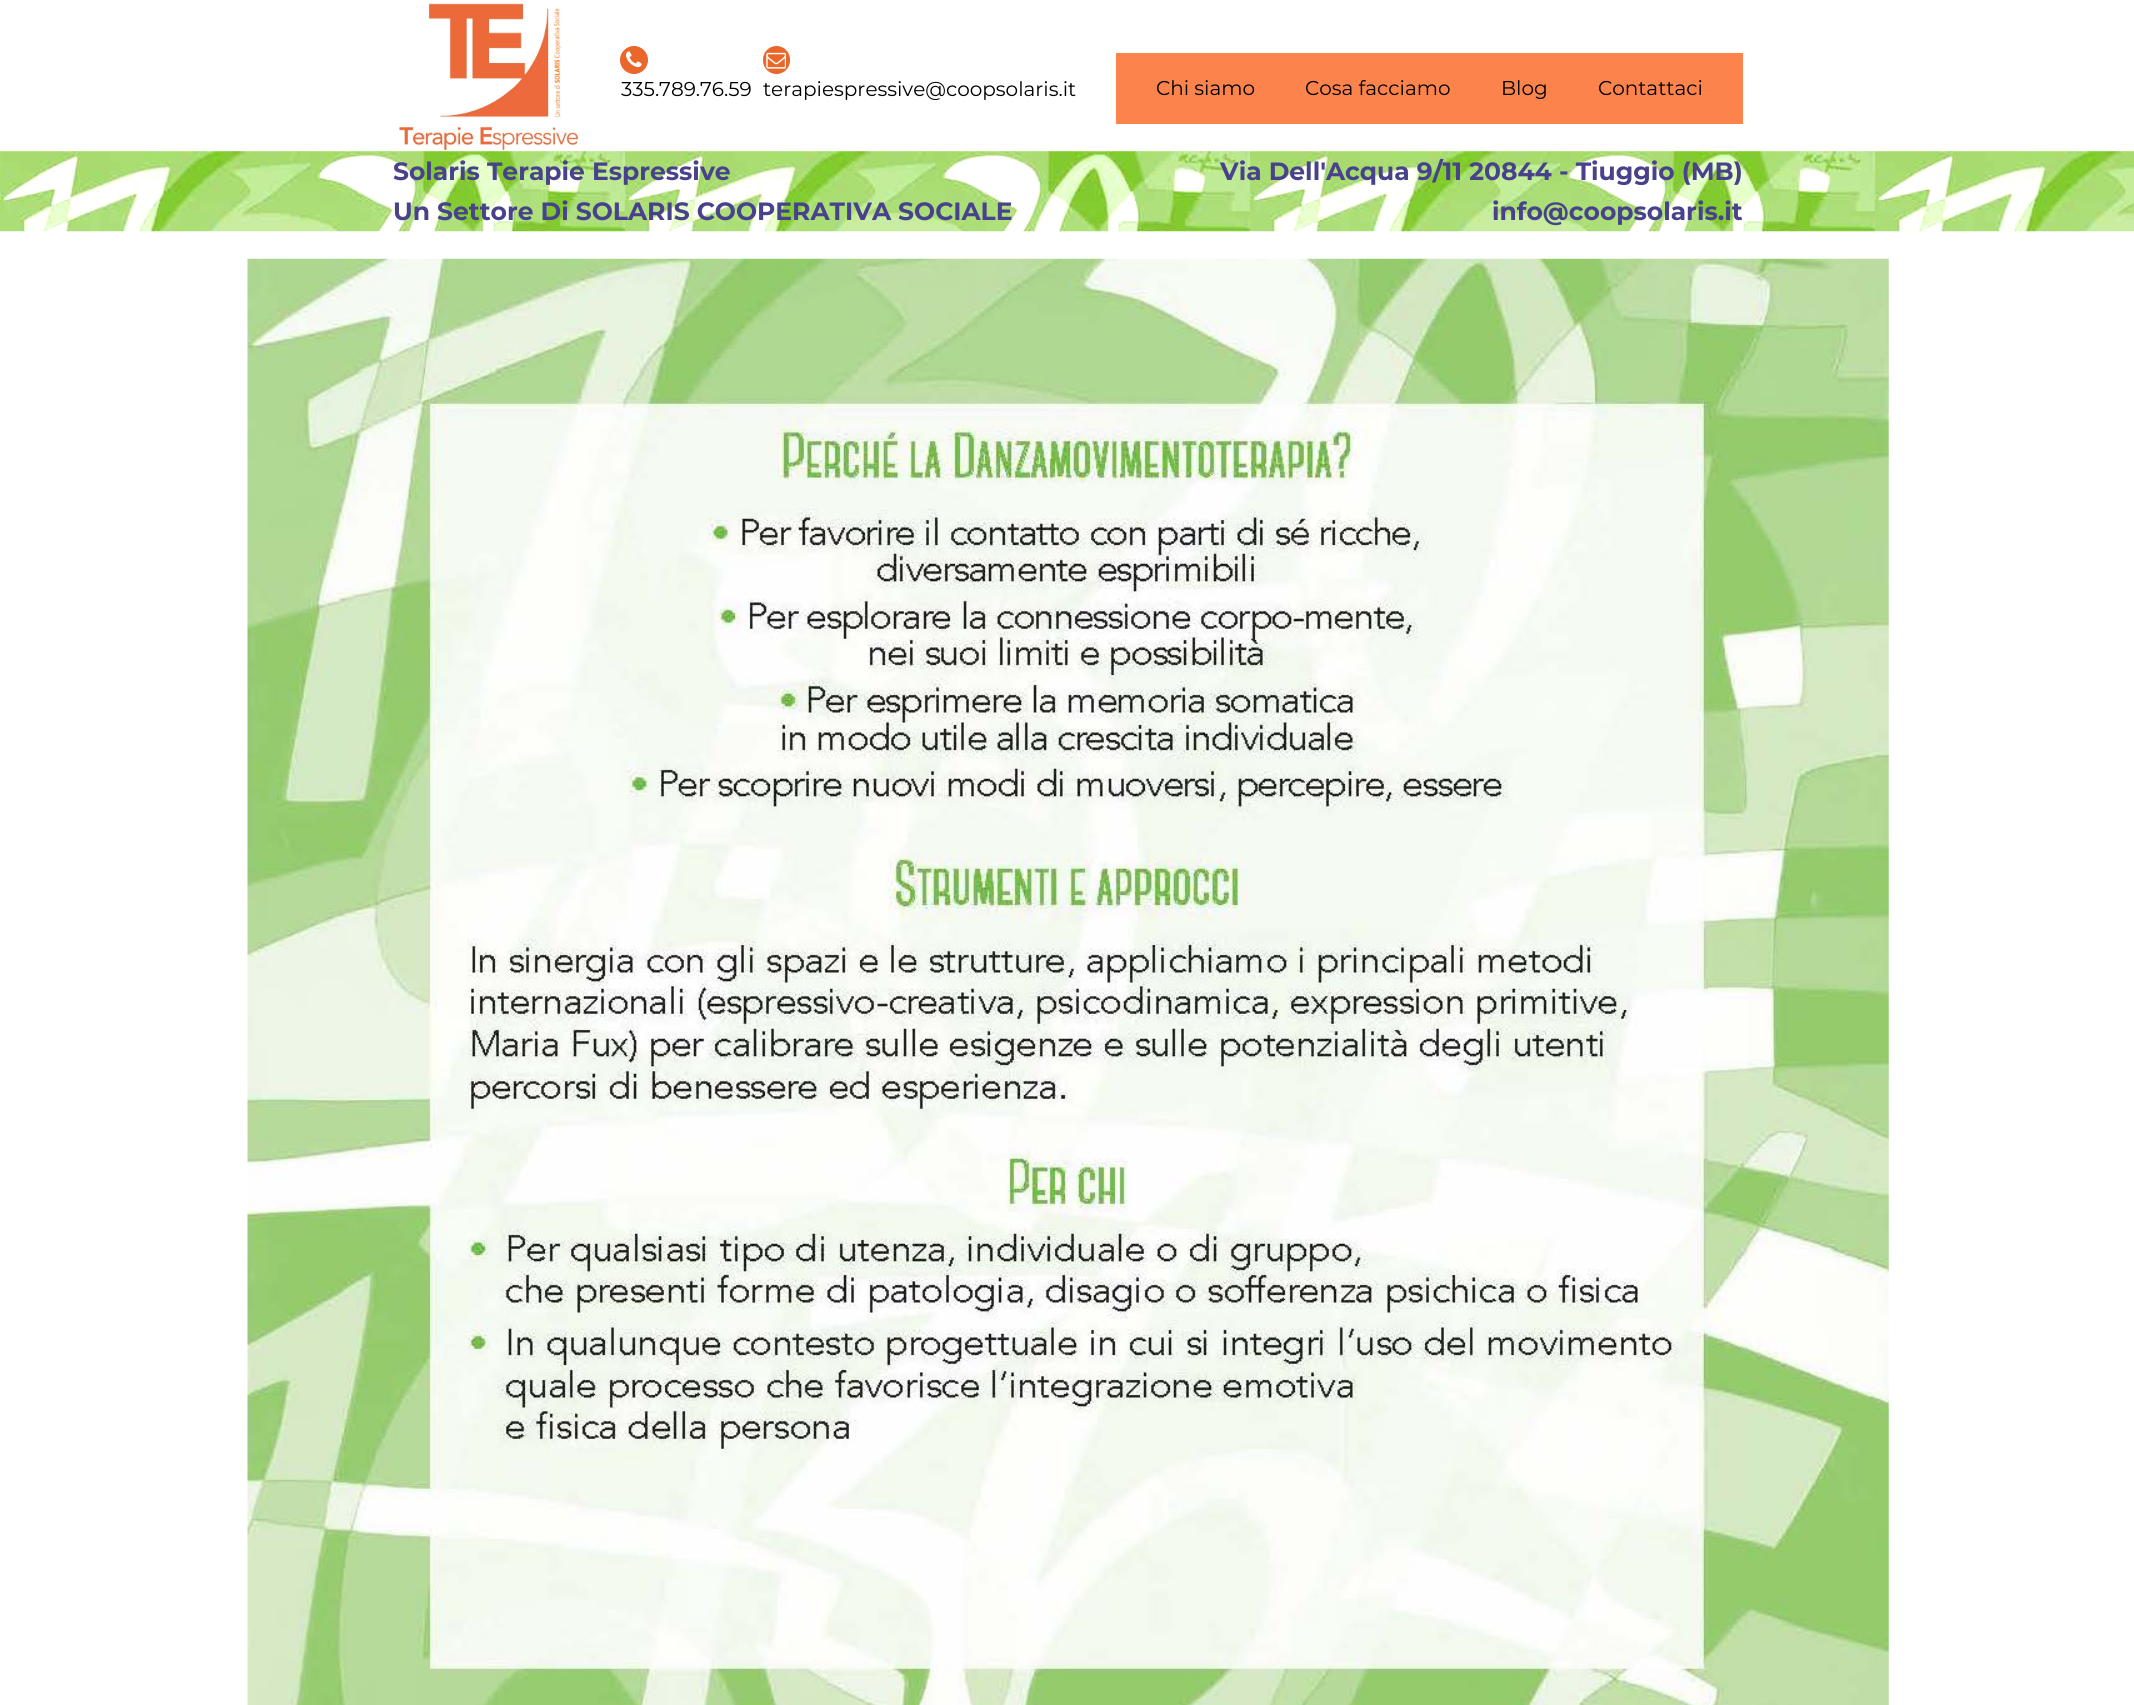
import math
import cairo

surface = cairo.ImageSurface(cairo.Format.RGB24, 2134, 1705)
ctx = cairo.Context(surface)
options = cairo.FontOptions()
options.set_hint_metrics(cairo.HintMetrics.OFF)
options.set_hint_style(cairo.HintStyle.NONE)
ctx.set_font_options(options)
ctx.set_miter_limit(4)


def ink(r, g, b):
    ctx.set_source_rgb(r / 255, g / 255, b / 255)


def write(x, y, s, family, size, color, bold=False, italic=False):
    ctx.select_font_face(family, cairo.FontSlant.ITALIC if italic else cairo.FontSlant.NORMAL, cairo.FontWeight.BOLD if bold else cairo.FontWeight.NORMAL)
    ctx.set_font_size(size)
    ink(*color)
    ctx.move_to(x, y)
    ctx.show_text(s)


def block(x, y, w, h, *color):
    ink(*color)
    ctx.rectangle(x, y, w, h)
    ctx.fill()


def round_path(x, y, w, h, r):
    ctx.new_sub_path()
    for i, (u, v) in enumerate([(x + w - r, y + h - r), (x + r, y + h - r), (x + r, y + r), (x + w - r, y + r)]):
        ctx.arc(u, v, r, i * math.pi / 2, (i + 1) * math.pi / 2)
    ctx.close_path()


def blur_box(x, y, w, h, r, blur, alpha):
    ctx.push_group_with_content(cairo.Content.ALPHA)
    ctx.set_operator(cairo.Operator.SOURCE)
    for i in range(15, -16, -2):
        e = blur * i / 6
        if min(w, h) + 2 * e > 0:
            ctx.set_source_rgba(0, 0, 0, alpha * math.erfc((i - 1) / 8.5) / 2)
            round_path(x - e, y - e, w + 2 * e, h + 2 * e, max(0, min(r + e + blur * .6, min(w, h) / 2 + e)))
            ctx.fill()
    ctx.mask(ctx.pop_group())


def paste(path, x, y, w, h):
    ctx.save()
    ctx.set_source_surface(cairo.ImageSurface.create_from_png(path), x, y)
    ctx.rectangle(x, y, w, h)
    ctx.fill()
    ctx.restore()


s1 = dict(family="Montserrat", size=20, color=(0, 0, 0))
s2 = dict(family="Montserrat", size=25, color=(71, 66, 139), bold=True)

ink(255, 255, 255)
ctx.paint()
ctx.save()
ctx.rectangle(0, 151, 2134, 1)
ctx.clip()
ink(0, 0, 0)
blur_box(0, 13, 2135, 151, 0, 25, 0.1)
ctx.restore()
paste("pic1.png", 399, 3, 180, 148)
ink(235, 102, 42)
ctx.arc(634, 60, 13.5, 0, 2 * math.pi)
ctx.fill_preserve()
ctx.set_line_width(1)
ctx.stroke()
paste("pic2.png", 625, 51, 17, 17)
write(621, 96, "335.789.76.59", **s1)
ink(235, 102, 42)
round_path(763.5, 46.5, 26, 27, 13)
ctx.fill_preserve()
ctx.stroke()
paste("pic3.png", 766, 52, 20, 17)
write(763, 96, "terapiespressive@coopsolaris.it", **s1)
block(1116, 53, 627, 71, 253, 131, 76)
write(1156, 95, "Chi siamo", **s1)
write(1305, 95, "Cosa facciamo", **s1)
write(1501, 95, "Blog", **s1)
write(1598, 95, "Contattaci", **s1)
paste("pic4.png", 0, 151, 2134, 81)
write(393, 180, "Solaris Terapie Espressive", **s2)
write(393, 220, "Un Settore Di SOLARIS COOPERATIVA SOCIALE", **s2)
write(1220, 180, "Via Dell'Acqua 9/11 20844 - Tiuggio (MB)", **s2)
write(1492, 220, "info@coopsolaris.it", **s2)
paste("pic5.png", 247, 258, 1642, 1447)
surface.write_to_png("screenshot.png")
